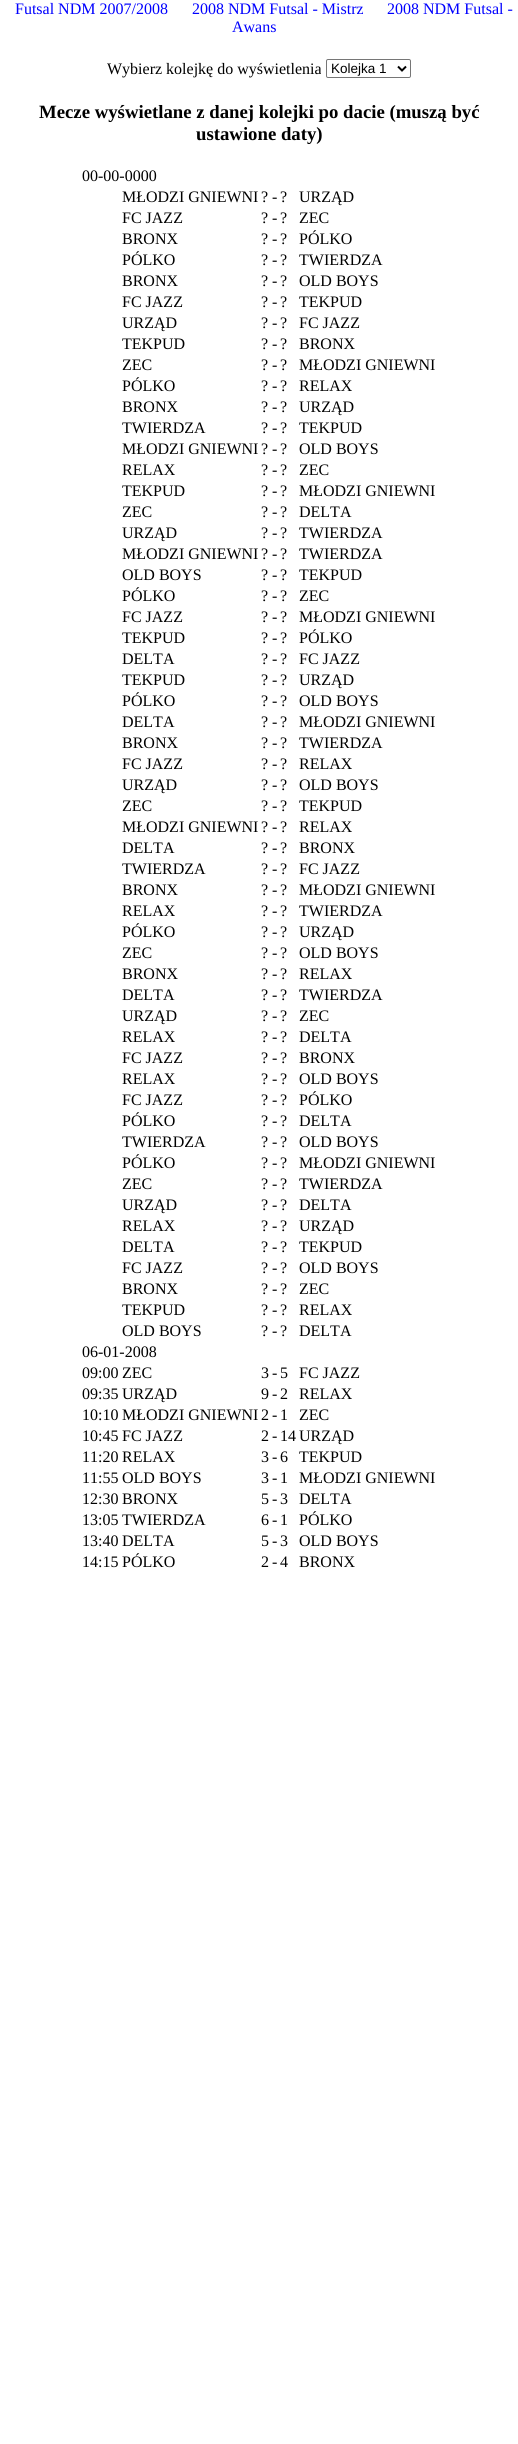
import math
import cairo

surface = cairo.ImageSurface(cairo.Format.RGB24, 518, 2444)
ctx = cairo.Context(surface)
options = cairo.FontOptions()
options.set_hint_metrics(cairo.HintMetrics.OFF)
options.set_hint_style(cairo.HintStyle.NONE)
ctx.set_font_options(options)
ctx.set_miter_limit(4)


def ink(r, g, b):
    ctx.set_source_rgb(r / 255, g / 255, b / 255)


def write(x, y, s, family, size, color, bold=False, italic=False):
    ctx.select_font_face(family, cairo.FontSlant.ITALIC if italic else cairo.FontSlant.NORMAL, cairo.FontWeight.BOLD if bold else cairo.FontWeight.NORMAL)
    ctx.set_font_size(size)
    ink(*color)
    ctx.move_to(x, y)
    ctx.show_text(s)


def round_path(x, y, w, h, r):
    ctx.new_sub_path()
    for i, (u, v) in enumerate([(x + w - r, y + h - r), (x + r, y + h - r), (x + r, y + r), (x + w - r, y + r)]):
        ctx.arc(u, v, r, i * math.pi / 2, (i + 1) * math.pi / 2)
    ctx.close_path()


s1 = dict(family="Liberation Serif", size=16, color=(0, 0, 255))
s2 = dict(family="Liberation Serif", size=16, color=(0, 0, 0))
s3 = dict(family="Liberation Sans", size=13.5, color=(0, 0, 0))
s4 = dict(family="Liberation Serif", size=18.75, color=(0, 0, 0), bold=True)

ink(255, 255, 255)
ctx.paint()
write(15, 14, "Futsal NDM 2007/2008", **s1)
write(192, 14, "2008 NDM Futsal - Mistrz", **s1)
write(387, 14, "2008 NDM Futsal -", **s1)
write(232, 32, "Awans", **s1)
write(107, 74, "Wybierz kolejkę do wyświetlenia", **s2)
round_path(326.5, 59.5, 84, 18, 1.5)
ink(118, 118, 118)
ctx.set_line_width(1)
ctx.stroke()
ctx.new_path()
ctx.move_to(398, 66.5)
ctx.line_to(402, 70.5)
ctx.line_to(406, 66.5)
ink(0, 0, 0)
ctx.set_line_width(2)
ctx.stroke()
write(331, 73, "Kolejka 1", **s3)
write(39, 118, "Mecze wyświetlane z danej kolejki po dacie (muszą być", **s4)
write(196, 140, "ustawione daty)", **s4)
write(82, 181, "00-00-0000", **s2)
write(122, 202, "MŁODZI GNIEWNI", **s2)
write(261, 202, "? -", **s2)
write(280, 202, "?", **s2)
write(299, 202, "URZĄD", **s2)
write(122, 223, "FC JAZZ", **s2)
write(261, 223, "? -", **s2)
write(280, 223, "?", **s2)
write(299, 223, "ZEC", **s2)
write(122, 244, "BRONX", **s2)
write(261, 244, "? -", **s2)
write(280, 244, "?", **s2)
write(299, 244, "PÓLKO", **s2)
write(122, 265, "PÓLKO", **s2)
write(261, 265, "? -", **s2)
write(280, 265, "?", **s2)
write(299, 265, "TWIERDZA", **s2)
write(122, 286, "BRONX", **s2)
write(261, 286, "? -", **s2)
write(280, 286, "?", **s2)
write(299, 286, "OLD BOYS", **s2)
write(122, 307, "FC JAZZ", **s2)
write(261, 307, "? -", **s2)
write(280, 307, "?", **s2)
write(299, 307, "TEKPUD", **s2)
write(122, 328, "URZĄD", **s2)
write(261, 328, "? -", **s2)
write(280, 328, "?", **s2)
write(299, 328, "FC JAZZ", **s2)
write(122, 349, "TEKPUD", **s2)
write(261, 349, "? -", **s2)
write(280, 349, "?", **s2)
write(299, 349, "BRONX", **s2)
write(122, 370, "ZEC", **s2)
write(261, 370, "? -", **s2)
write(280, 370, "?", **s2)
write(299, 370, "MŁODZI GNIEWNI", **s2)
write(122, 391, "PÓLKO", **s2)
write(261, 391, "? -", **s2)
write(280, 391, "?", **s2)
write(299, 391, "RELAX", **s2)
write(122, 412, "BRONX", **s2)
write(261, 412, "? -", **s2)
write(280, 412, "?", **s2)
write(299, 412, "URZĄD", **s2)
write(122, 433, "TWIERDZA", **s2)
write(261, 433, "? -", **s2)
write(280, 433, "?", **s2)
write(299, 433, "TEKPUD", **s2)
write(122, 454, "MŁODZI GNIEWNI", **s2)
write(261, 454, "? -", **s2)
write(280, 454, "?", **s2)
write(299, 454, "OLD BOYS", **s2)
write(122, 475, "RELAX", **s2)
write(261, 475, "? -", **s2)
write(280, 475, "?", **s2)
write(299, 475, "ZEC", **s2)
write(122, 496, "TEKPUD", **s2)
write(261, 496, "? -", **s2)
write(280, 496, "?", **s2)
write(299, 496, "MŁODZI GNIEWNI", **s2)
write(122, 517, "ZEC", **s2)
write(261, 517, "? -", **s2)
write(280, 517, "?", **s2)
write(299, 517, "DELTA", **s2)
write(122, 538, "URZĄD", **s2)
write(261, 538, "? -", **s2)
write(280, 538, "?", **s2)
write(299, 538, "TWIERDZA", **s2)
write(122, 559, "MŁODZI GNIEWNI", **s2)
write(261, 559, "? -", **s2)
write(280, 559, "?", **s2)
write(299, 559, "TWIERDZA", **s2)
write(122, 580, "OLD BOYS", **s2)
write(261, 580, "? -", **s2)
write(280, 580, "?", **s2)
write(299, 580, "TEKPUD", **s2)
write(122, 601, "PÓLKO", **s2)
write(261, 601, "? -", **s2)
write(280, 601, "?", **s2)
write(299, 601, "ZEC", **s2)
write(122, 622, "FC JAZZ", **s2)
write(261, 622, "? -", **s2)
write(280, 622, "?", **s2)
write(299, 622, "MŁODZI GNIEWNI", **s2)
write(122, 643, "TEKPUD", **s2)
write(261, 643, "? -", **s2)
write(280, 643, "?", **s2)
write(299, 643, "PÓLKO", **s2)
write(122, 664, "DELTA", **s2)
write(261, 664, "? -", **s2)
write(280, 664, "?", **s2)
write(299, 664, "FC JAZZ", **s2)
write(122, 685, "TEKPUD", **s2)
write(261, 685, "? -", **s2)
write(280, 685, "?", **s2)
write(299, 685, "URZĄD", **s2)
write(122, 706, "PÓLKO", **s2)
write(261, 706, "? -", **s2)
write(280, 706, "?", **s2)
write(299, 706, "OLD BOYS", **s2)
write(122, 727, "DELTA", **s2)
write(261, 727, "? -", **s2)
write(280, 727, "?", **s2)
write(299, 727, "MŁODZI GNIEWNI", **s2)
write(122, 748, "BRONX", **s2)
write(261, 748, "? -", **s2)
write(280, 748, "?", **s2)
write(299, 748, "TWIERDZA", **s2)
write(122, 769, "FC JAZZ", **s2)
write(261, 769, "? -", **s2)
write(280, 769, "?", **s2)
write(299, 769, "RELAX", **s2)
write(122, 790, "URZĄD", **s2)
write(261, 790, "? -", **s2)
write(280, 790, "?", **s2)
write(299, 790, "OLD BOYS", **s2)
write(122, 811, "ZEC", **s2)
write(261, 811, "? -", **s2)
write(280, 811, "?", **s2)
write(299, 811, "TEKPUD", **s2)
write(122, 832, "MŁODZI GNIEWNI", **s2)
write(261, 832, "? -", **s2)
write(280, 832, "?", **s2)
write(299, 832, "RELAX", **s2)
write(122, 853, "DELTA", **s2)
write(261, 853, "? -", **s2)
write(280, 853, "?", **s2)
write(299, 853, "BRONX", **s2)
write(122, 874, "TWIERDZA", **s2)
write(261, 874, "? -", **s2)
write(280, 874, "?", **s2)
write(299, 874, "FC JAZZ", **s2)
write(122, 895, "BRONX", **s2)
write(261, 895, "? -", **s2)
write(280, 895, "?", **s2)
write(299, 895, "MŁODZI GNIEWNI", **s2)
write(122, 916, "RELAX", **s2)
write(261, 916, "? -", **s2)
write(280, 916, "?", **s2)
write(299, 916, "TWIERDZA", **s2)
write(122, 937, "PÓLKO", **s2)
write(261, 937, "? -", **s2)
write(280, 937, "?", **s2)
write(299, 937, "URZĄD", **s2)
write(122, 958, "ZEC", **s2)
write(261, 958, "? -", **s2)
write(280, 958, "?", **s2)
write(299, 958, "OLD BOYS", **s2)
write(122, 979, "BRONX", **s2)
write(261, 979, "? -", **s2)
write(280, 979, "?", **s2)
write(299, 979, "RELAX", **s2)
write(122, 1000, "DELTA", **s2)
write(261, 1000, "? -", **s2)
write(280, 1000, "?", **s2)
write(299, 1000, "TWIERDZA", **s2)
write(122, 1021, "URZĄD", **s2)
write(261, 1021, "? -", **s2)
write(280, 1021, "?", **s2)
write(299, 1021, "ZEC", **s2)
write(122, 1042, "RELAX", **s2)
write(261, 1042, "? -", **s2)
write(280, 1042, "?", **s2)
write(299, 1042, "DELTA", **s2)
write(122, 1063, "FC JAZZ", **s2)
write(261, 1063, "? -", **s2)
write(280, 1063, "?", **s2)
write(299, 1063, "BRONX", **s2)
write(122, 1084, "RELAX", **s2)
write(261, 1084, "? -", **s2)
write(280, 1084, "?", **s2)
write(299, 1084, "OLD BOYS", **s2)
write(122, 1105, "FC JAZZ", **s2)
write(261, 1105, "? -", **s2)
write(280, 1105, "?", **s2)
write(299, 1105, "PÓLKO", **s2)
write(122, 1126, "PÓLKO", **s2)
write(261, 1126, "? -", **s2)
write(280, 1126, "?", **s2)
write(299, 1126, "DELTA", **s2)
write(122, 1147, "TWIERDZA", **s2)
write(261, 1147, "? -", **s2)
write(280, 1147, "?", **s2)
write(299, 1147, "OLD BOYS", **s2)
write(122, 1168, "PÓLKO", **s2)
write(261, 1168, "? -", **s2)
write(280, 1168, "?", **s2)
write(299, 1168, "MŁODZI GNIEWNI", **s2)
write(122, 1189, "ZEC", **s2)
write(261, 1189, "? -", **s2)
write(280, 1189, "?", **s2)
write(299, 1189, "TWIERDZA", **s2)
write(122, 1210, "URZĄD", **s2)
write(261, 1210, "? -", **s2)
write(280, 1210, "?", **s2)
write(299, 1210, "DELTA", **s2)
write(122, 1231, "RELAX", **s2)
write(261, 1231, "? -", **s2)
write(280, 1231, "?", **s2)
write(299, 1231, "URZĄD", **s2)
write(122, 1252, "DELTA", **s2)
write(261, 1252, "? -", **s2)
write(280, 1252, "?", **s2)
write(299, 1252, "TEKPUD", **s2)
write(122, 1273, "FC JAZZ", **s2)
write(261, 1273, "? -", **s2)
write(280, 1273, "?", **s2)
write(299, 1273, "OLD BOYS", **s2)
write(122, 1294, "BRONX", **s2)
write(261, 1294, "? -", **s2)
write(280, 1294, "?", **s2)
write(299, 1294, "ZEC", **s2)
write(122, 1315, "TEKPUD", **s2)
write(261, 1315, "? -", **s2)
write(280, 1315, "?", **s2)
write(299, 1315, "RELAX", **s2)
write(122, 1336, "OLD BOYS", **s2)
write(261, 1336, "? -", **s2)
write(280, 1336, "?", **s2)
write(299, 1336, "DELTA", **s2)
write(82, 1357, "06-01-2008", **s2)
write(82, 1378, "09:00", **s2)
write(122, 1378, "ZEC", **s2)
write(261, 1378, "3", **s2)
write(272, 1378, "-", **s2)
write(280, 1378, "5", **s2)
write(299, 1378, "FC JAZZ", **s2)
write(82, 1399, "09:35", **s2)
write(122, 1399, "URZĄD", **s2)
write(261, 1399, "9", **s2)
write(272, 1399, "-", **s2)
write(280, 1399, "2", **s2)
write(299, 1399, "RELAX", **s2)
write(82, 1420, "10:10", **s2)
write(122, 1420, "MŁODZI GNIEWNI", **s2)
write(261, 1420, "2", **s2)
write(272, 1420, "-", **s2)
write(280, 1420, "1", **s2)
write(299, 1420, "ZEC", **s2)
write(82, 1441, "10:45", **s2)
write(122, 1441, "FC JAZZ", **s2)
write(261, 1441, "2", **s2)
write(272, 1441, "-", **s2)
write(280, 1441, "14", **s2)
write(299, 1441, "URZĄD", **s2)
write(82, 1462, "11:20", **s2)
write(122, 1462, "RELAX", **s2)
write(261, 1462, "3", **s2)
write(272, 1462, "-", **s2)
write(280, 1462, "6", **s2)
write(299, 1462, "TEKPUD", **s2)
write(82, 1483, "11:55", **s2)
write(122, 1483, "OLD BOYS", **s2)
write(261, 1483, "3", **s2)
write(272, 1483, "-", **s2)
write(280, 1483, "1", **s2)
write(299, 1483, "MŁODZI GNIEWNI", **s2)
write(82, 1504, "12:30", **s2)
write(122, 1504, "BRONX", **s2)
write(261, 1504, "5", **s2)
write(272, 1504, "-", **s2)
write(280, 1504, "3", **s2)
write(299, 1504, "DELTA", **s2)
write(82, 1525, "13:05", **s2)
write(122, 1525, "TWIERDZA", **s2)
write(261, 1525, "6", **s2)
write(272, 1525, "-", **s2)
write(280, 1525, "1", **s2)
write(299, 1525, "PÓLKO", **s2)
write(82, 1546, "13:40", **s2)
write(122, 1546, "DELTA", **s2)
write(261, 1546, "5", **s2)
write(272, 1546, "-", **s2)
write(280, 1546, "3", **s2)
write(299, 1546, "OLD BOYS", **s2)
write(82, 1567, "14:15", **s2)
write(122, 1567, "PÓLKO", **s2)
write(261, 1567, "2", **s2)
write(272, 1567, "-", **s2)
write(280, 1567, "4", **s2)
write(299, 1567, "BRONX", **s2)
surface.write_to_png("screenshot.png")
